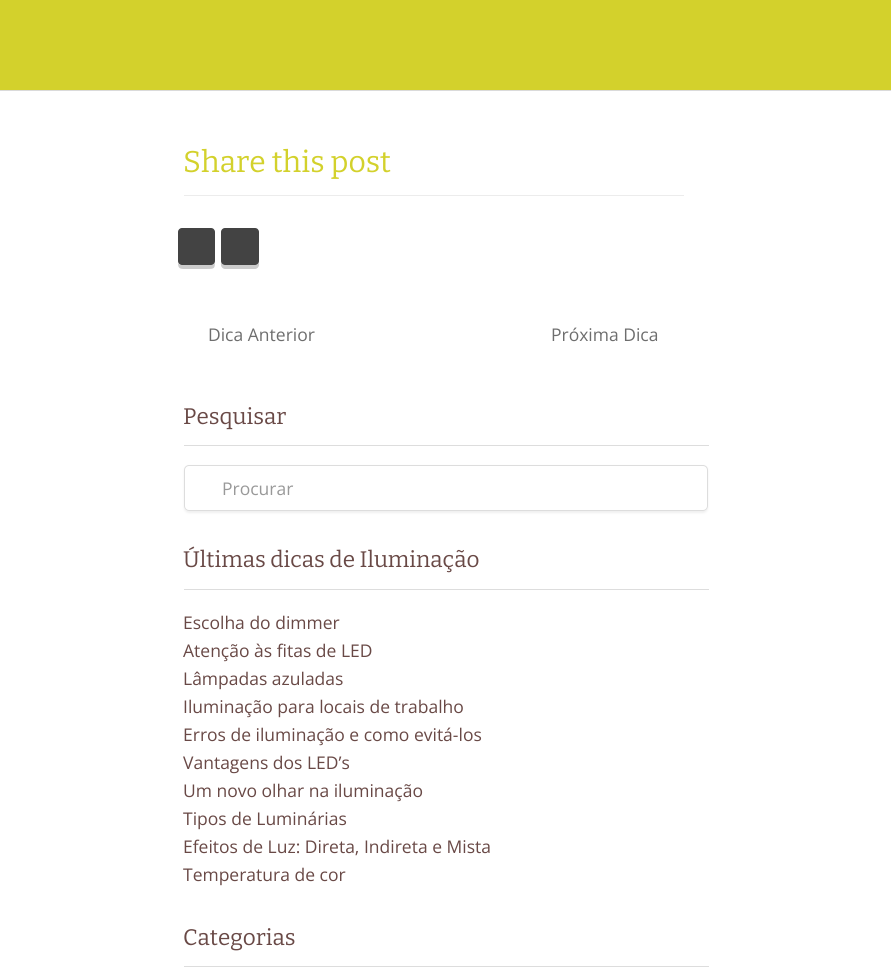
import math
import cairo

surface = cairo.ImageSurface(cairo.Format.RGB24, 891, 973)
ctx = cairo.Context(surface)
options = cairo.FontOptions()
options.set_hint_metrics(cairo.HintMetrics.OFF)
options.set_hint_style(cairo.HintStyle.NONE)
ctx.set_font_options(options)
ctx.set_miter_limit(4)


def ink(r, g, b):
    ctx.set_source_rgb(r / 255, g / 255, b / 255)


def write(x, y, s, family, size, color, bold=False, italic=False):
    ctx.select_font_face(family, cairo.FontSlant.ITALIC if italic else cairo.FontSlant.NORMAL, cairo.FontWeight.BOLD if bold else cairo.FontWeight.NORMAL)
    ctx.set_font_size(size)
    ink(*color)
    ctx.move_to(x, y)
    ctx.show_text(s)


def block(x, y, w, h, *color):
    ink(*color)
    ctx.rectangle(x, y, w, h)
    ctx.fill()


def round_path(x, y, w, h, r):
    ctx.new_sub_path()
    for i, (u, v) in enumerate([(x + w - r, y + h - r), (x + r, y + h - r), (x + r, y + r), (x + w - r, y + r)]):
        ctx.arc(u, v, r, i * math.pi / 2, (i + 1) * math.pi / 2)
    ctx.close_path()


def blur_box(x, y, w, h, r, blur, alpha):
    ctx.push_group_with_content(cairo.Content.ALPHA)
    ctx.set_operator(cairo.Operator.SOURCE)
    for i in range(15, -16, -2):
        e = blur * i / 6
        if min(w, h) + 2 * e > 0:
            ctx.set_source_rgba(0, 0, 0, alpha * math.erfc((i - 1) / 8.5) / 2)
            round_path(x - e, y - e, w + 2 * e, h + 2 * e, max(0, min(r + e + blur * .6, min(w, h) / 2 + e)))
            ctx.fill()
    ctx.mask(ctx.pop_group())


s1 = dict(family="Bitter", size=30, color=(211, 209, 44))
s2 = dict(family="Open Sans", size=17.5, color=(110, 110, 110))
s3 = dict(family="Bitter", size=22.5, color=(105, 73, 70))
s4 = dict(family="Open Sans", size=17.5, color=(153, 153, 153))
s5 = dict(family="Open Sans", size=17.5, color=(105, 73, 70))

ink(255, 255, 255)
ctx.paint()
block(0, 0, 891, 90, 211, 209, 44)
block(0, 90, 891, 1, 218, 218, 218)
block(184, 195, 500, 1, 236, 236, 236)
write(183, 172, "Share this post", **s1)
ink(204, 204, 204)
ctx.new_path()
ctx.move_to(178, 263)
ctx.curve_to(178, 269.5, 181, 269, 187, 269)
ctx.line_to(206, 269)
ctx.curve_to(214.5, 269, 215, 269, 215, 261)
ctx.curve_to(215, 263.5, 213.5, 265, 211, 265)
ctx.line_to(181, 265)
ctx.curve_to(180, 265, 178.5, 264, 178, 263)
ctx.close_path()
ctx.fill()
ink(67, 67, 67)
round_path(178, 228, 37, 37, 4)
ctx.fill()
ink(204, 204, 204)
ctx.new_path()
ctx.move_to(221, 233.5)
ctx.line_to(221, 235)
ctx.line_to(221, 265)
ctx.curve_to(221, 267, 223, 269, 225, 269)
ctx.line_to(255, 269)
ctx.curve_to(257, 269, 259, 267, 259, 265)
ctx.line_to(259, 235)
ctx.line_to(259, 233.5)
ctx.line_to(259, 261)
ctx.curve_to(259, 263.5, 257, 265, 255, 265)
ctx.line_to(225, 265)
ctx.curve_to(223, 265, 221, 263.5, 221, 261)
ctx.close_path()
ctx.fill()
ink(67, 67, 67)
round_path(221, 228, 38, 37, 4)
ctx.fill()
write(208, 341, "Dica Anterior", **s2)
write(551, 341, "Próxima Dica", **s2)
block(184, 445, 525, 1, 221, 221, 221)
write(183, 424, "Pesquisar", **s3)
ctx.save()
ctx.set_fill_rule(cairo.FillRule.EVEN_ODD)
ctx.new_path()
ctx.move_to(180, 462)
ctx.line_to(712, 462)
ctx.line_to(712, 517)
ctx.line_to(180, 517)
ctx.close_path()
ctx.move_to(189, 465)
ctx.line_to(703, 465)
ctx.curve_to(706, 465, 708, 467, 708, 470)
ctx.line_to(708, 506)
ctx.curve_to(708, 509, 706, 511, 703, 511)
ctx.line_to(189, 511)
ctx.curve_to(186, 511, 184, 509, 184, 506)
ctx.line_to(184, 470)
ctx.curve_to(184, 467, 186, 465, 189, 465)
ctx.close_path()
ctx.clip()
ink(180, 180, 180)
blur_box(184, 466, 524, 47, 5, 1, 0.2)
ctx.restore()
round_path(184.5, 465.5, 523, 45, 4.5)
ink(221, 221, 221)
ctx.set_line_width(1)
ctx.stroke()
write(222, 495, "Procurar", **s4)
block(184, 589, 525, 1, 221, 221, 221)
write(183, 567, "Últimas dicas de Iluminação", **s3)
write(183, 629, "Escolha do dimmer", **s5)
write(183, 657, "Atenção às fitas de LED", **s5)
write(183, 685, "Lâmpadas azuladas", **s5)
write(183, 713, "Iluminação para locais de trabalho", **s5)
write(183, 741, "Erros de iluminação e como evitá-los", **s5)
write(183, 769, "Vantagens dos LED’s", **s5)
write(183, 797, "Um novo olhar na iluminação", **s5)
write(183, 825, "Tipos de Luminárias", **s5)
write(183, 853, "Efeitos de Luz: Direta, Indireta e Mista", **s5)
write(183, 881, "Temperatura de cor", **s5)
block(184, 966, 525, 1, 221, 221, 221)
write(183, 945, "Categorias", **s3)
surface.write_to_png("screenshot.png")
